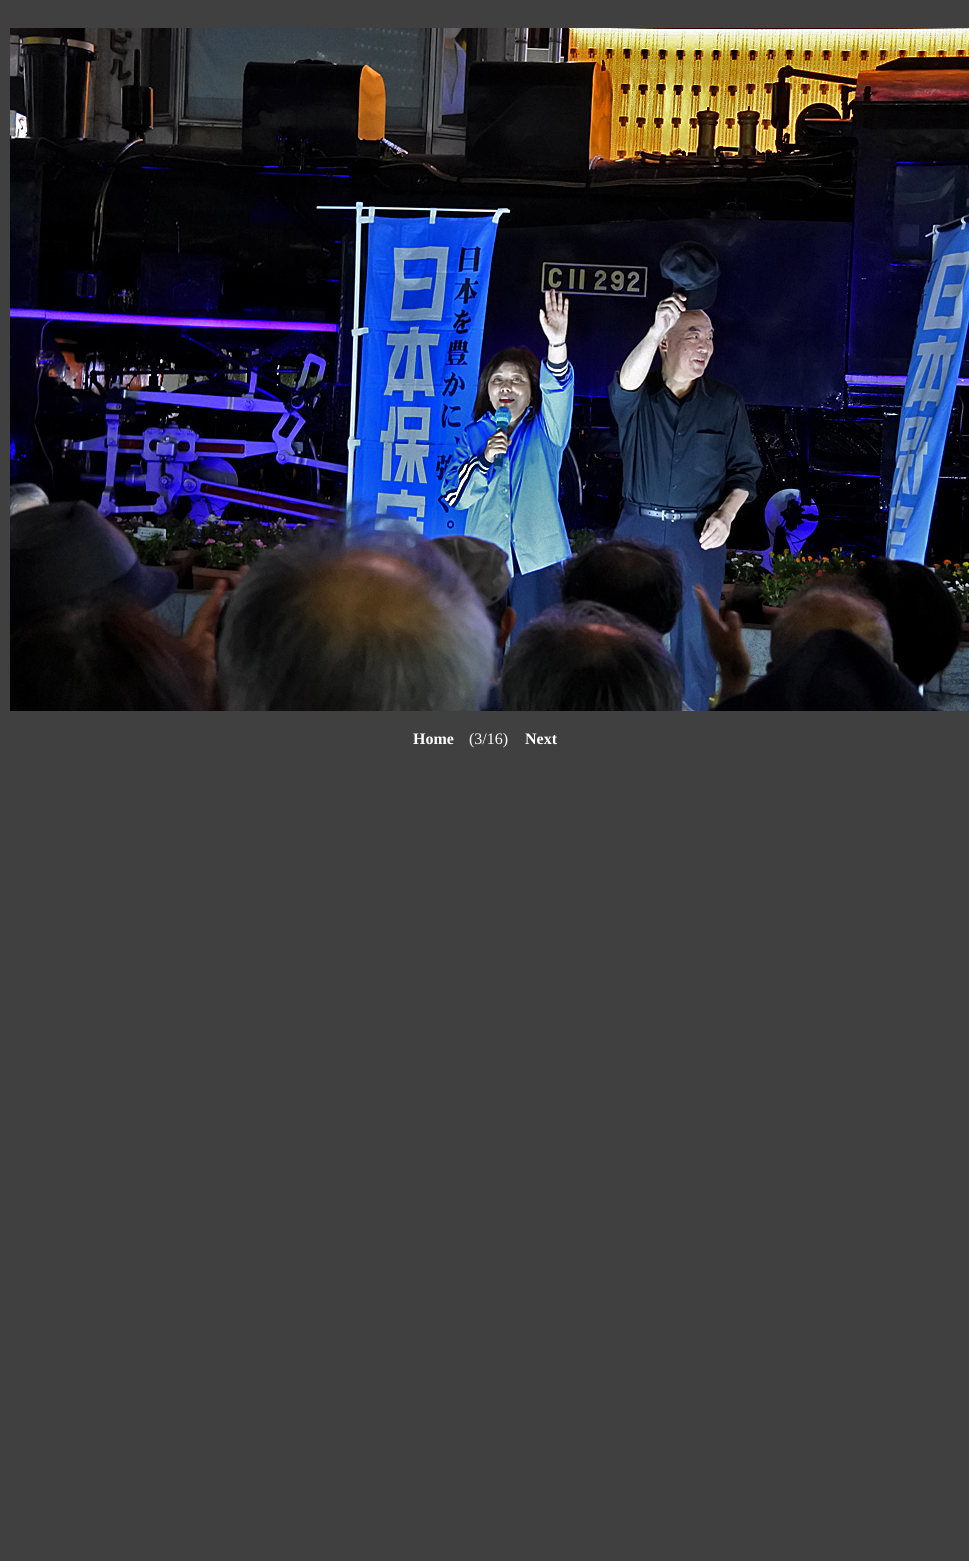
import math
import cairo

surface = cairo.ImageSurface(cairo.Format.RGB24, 969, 1561)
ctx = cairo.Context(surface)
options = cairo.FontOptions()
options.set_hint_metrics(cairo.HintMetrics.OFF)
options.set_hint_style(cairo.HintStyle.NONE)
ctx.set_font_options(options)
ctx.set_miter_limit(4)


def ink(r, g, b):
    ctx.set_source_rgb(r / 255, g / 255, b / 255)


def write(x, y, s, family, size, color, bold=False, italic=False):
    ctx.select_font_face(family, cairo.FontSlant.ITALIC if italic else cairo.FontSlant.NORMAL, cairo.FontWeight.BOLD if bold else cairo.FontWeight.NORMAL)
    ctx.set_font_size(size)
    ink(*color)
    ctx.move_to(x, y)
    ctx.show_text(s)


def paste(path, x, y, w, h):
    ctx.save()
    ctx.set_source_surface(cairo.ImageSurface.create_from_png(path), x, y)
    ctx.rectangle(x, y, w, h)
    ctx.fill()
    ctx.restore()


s1 = dict(family="Liberation Serif", size=16, color=(255, 255, 255), bold=True)
s2 = dict(family="Liberation Serif", size=16, color=(255, 255, 255))

ink(64, 64, 64)
ctx.paint()
paste("pic1.png", 10, 28, 959, 683)
write(413, 744, "Home", **s1)
write(469, 744, "(3/16)", **s2)
write(525, 744, "Next", **s1)
surface.write_to_png("screenshot.png")
